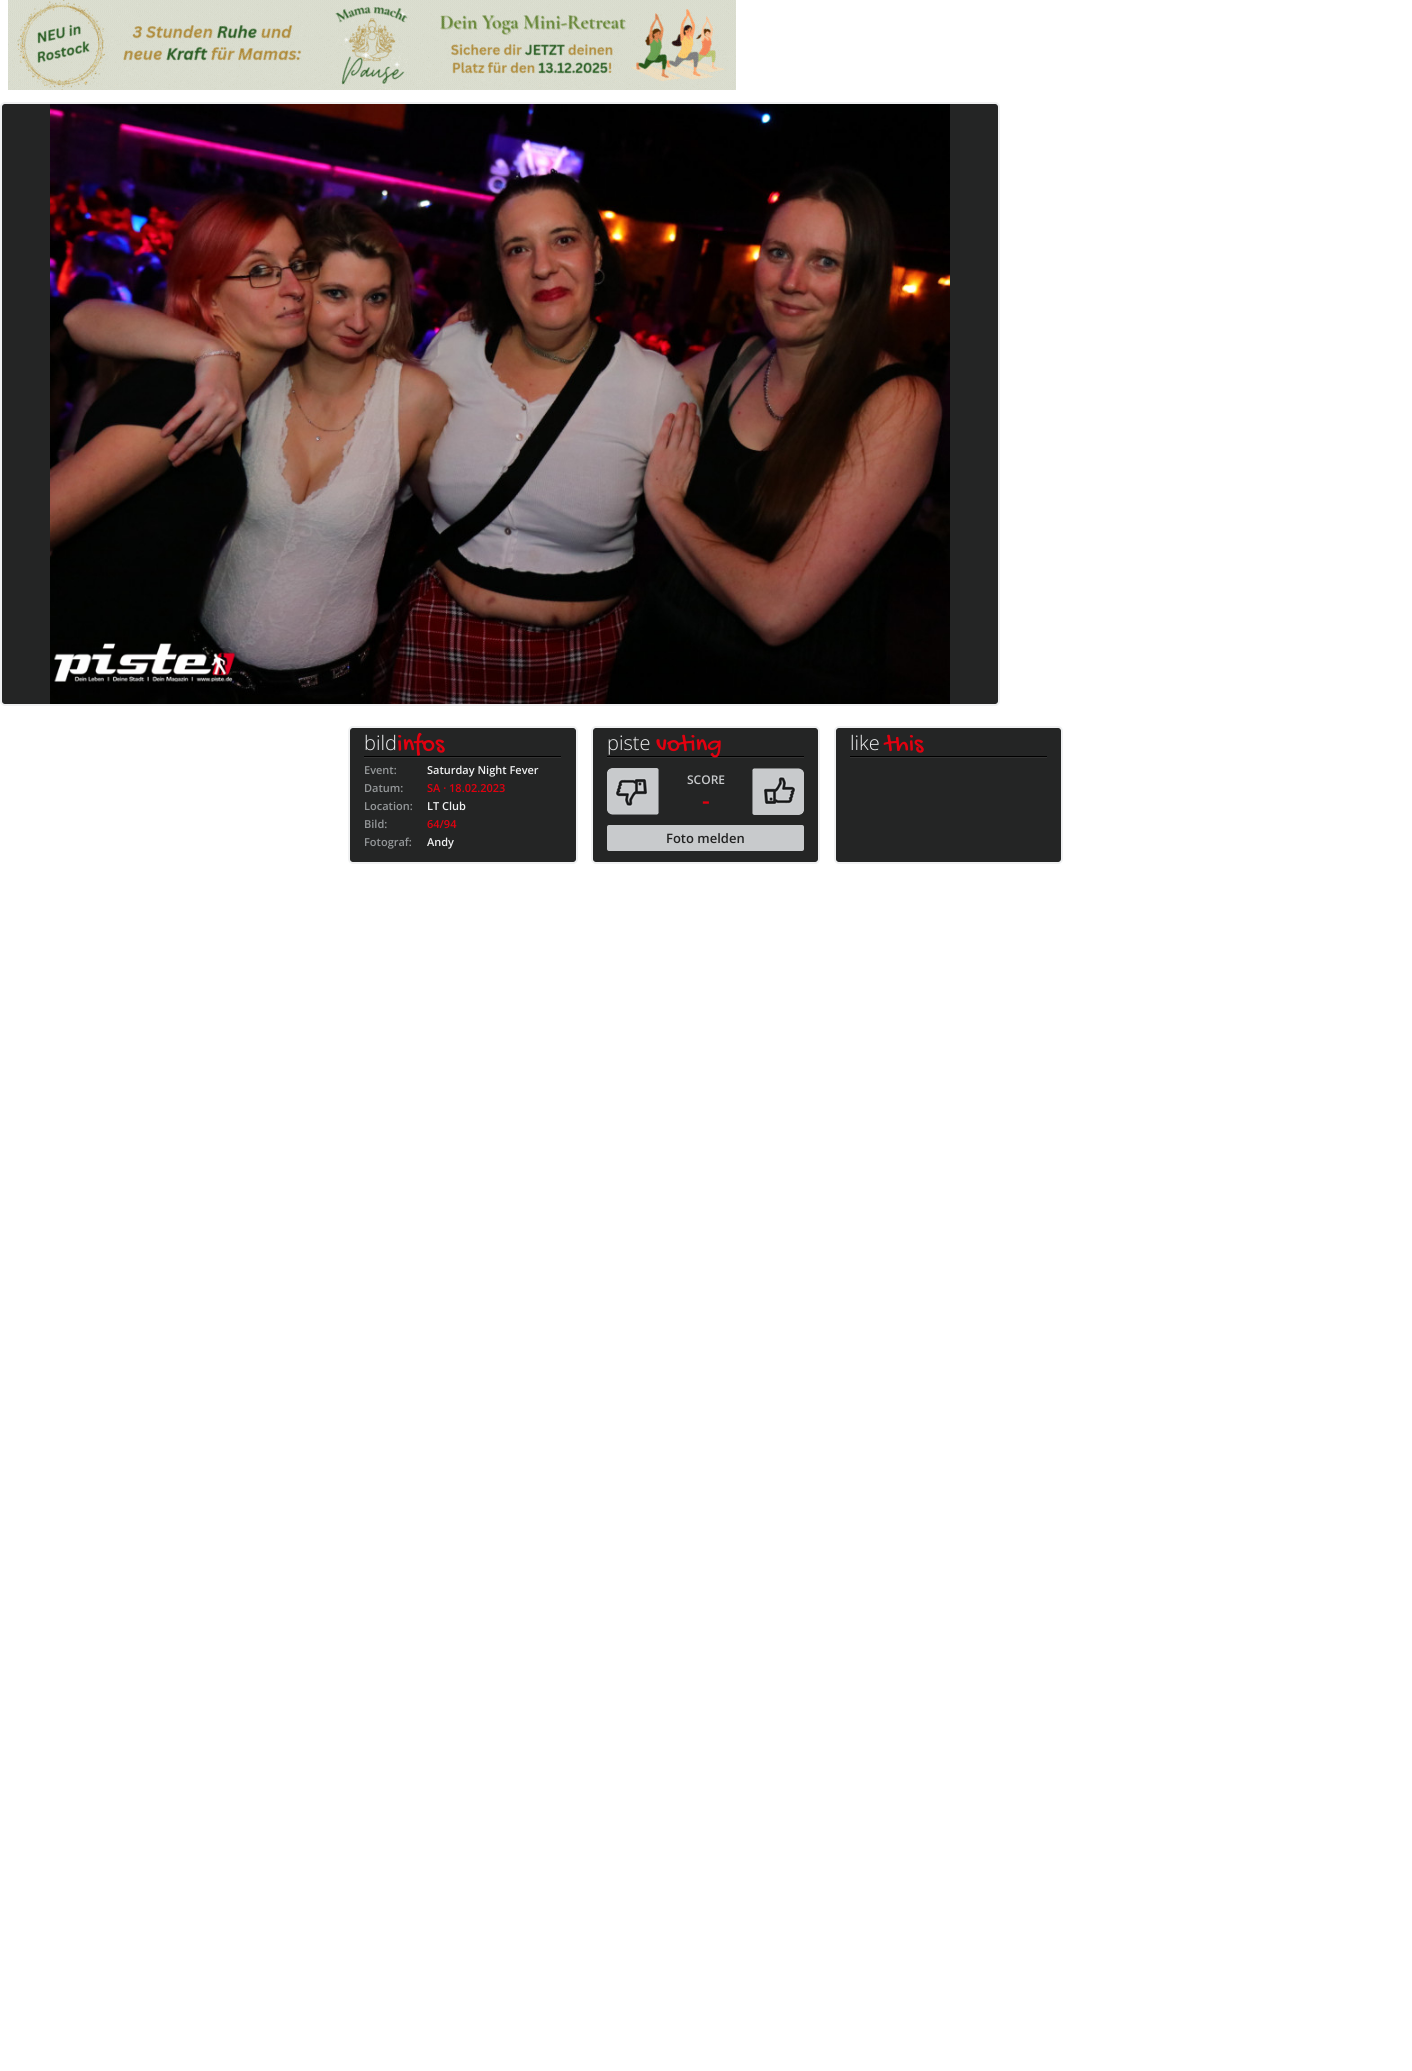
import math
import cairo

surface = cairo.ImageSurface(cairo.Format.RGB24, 1412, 2071)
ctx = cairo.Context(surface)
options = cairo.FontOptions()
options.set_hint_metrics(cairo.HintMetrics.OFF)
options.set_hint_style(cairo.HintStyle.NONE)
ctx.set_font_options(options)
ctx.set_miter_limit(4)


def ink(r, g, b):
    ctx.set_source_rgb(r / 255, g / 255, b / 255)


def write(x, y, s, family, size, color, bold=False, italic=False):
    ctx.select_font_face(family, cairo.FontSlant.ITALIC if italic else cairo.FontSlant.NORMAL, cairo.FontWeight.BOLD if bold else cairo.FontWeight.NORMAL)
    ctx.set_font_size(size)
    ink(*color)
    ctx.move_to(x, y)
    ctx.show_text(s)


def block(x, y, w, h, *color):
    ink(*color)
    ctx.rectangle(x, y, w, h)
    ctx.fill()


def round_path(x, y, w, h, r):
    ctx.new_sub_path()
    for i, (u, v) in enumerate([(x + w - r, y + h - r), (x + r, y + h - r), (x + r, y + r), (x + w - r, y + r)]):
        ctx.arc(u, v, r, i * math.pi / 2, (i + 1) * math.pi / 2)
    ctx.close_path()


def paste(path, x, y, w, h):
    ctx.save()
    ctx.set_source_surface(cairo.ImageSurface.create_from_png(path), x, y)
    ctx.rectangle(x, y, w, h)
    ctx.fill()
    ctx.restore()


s1 = dict(family="Open Sans Light", size=20, color=(240, 241, 242))
s2 = dict(family="Gochi Hand", size=25, color=(226, 0, 15))
s3 = dict(family="Open Sans SemiBold", size=11, color=(148, 151, 153))
s4 = dict(family="Open Sans SemiBold", size=11, color=(240, 241, 242))
s5 = dict(family="Open Sans SemiBold", size=11, color=(226, 0, 15))
s6 = dict(family="Open Sans SemiBold", size=12, color=(200, 202, 204))
s7 = dict(family="Open Sans SemiBold", size=24, color=(226, 0, 15))
s8 = dict(family="Open Sans SemiBold", size=13, color=(34, 34, 34))

ink(255, 255, 255)
ctx.paint()
paste("pic1.png", 8, 0, 728, 90)
ink(36, 37, 37)
round_path(1, 103, 998, 602, 4)
ctx.fill_preserve()
ink(240, 241, 242)
ctx.stroke()
paste("pic2.png", 50, 104, 900, 600)
ink(36, 37, 37)
round_path(349, 727, 228, 136, 4)
ctx.fill_preserve()
ink(240, 241, 242)
ctx.stroke()
write(364, 750, "bild", **s1)
write(397, 750, "infos", **s2)
block(364, 756, 197, 1, 0, 0, 0)
block(364, 757, 197, 1, 53, 53, 53)
write(364, 774, "Event:", **s3)
write(427, 774, "Saturday Night Fever", **s4)
write(364, 792, "Datum:", **s3)
write(427, 792, "SA · 18.02.2023", **s5)
write(364, 810, "Location:", **s3)
write(427, 810, "LT Club", **s4)
write(364, 828, "Bild:", **s3)
write(427, 828, "64/94", **s5)
write(364, 846, "Fotograf:", **s3)
write(427, 846, "Andy", **s4)
ink(36, 37, 37)
round_path(592, 727, 227, 136, 4)
ctx.fill_preserve()
ink(240, 241, 242)
ctx.stroke()
write(607, 750, "piste", **s1)
block(607, 756, 197, 1, 0, 0, 0)
block(607, 757, 197, 1, 53, 53, 53)
write(656, 750, "voting", **s2)
paste("pic3.png", 607, 768, 52, 47)
write(687, 784, "SCORE", **s6)
write(702, 809, "-", **s7)
paste("pic4.png", 752, 768, 52, 47)
ink(200, 202, 204)
round_path(607, 825, 197, 26, 2)
ctx.fill()
write(666, 843, "Foto melden", **s8)
ink(36, 37, 37)
round_path(835, 727, 227, 136, 4)
ctx.fill_preserve()
ink(240, 241, 242)
ctx.stroke()
write(850, 750, "like", **s1)
write(885, 750, "this", **s2)
block(850, 756, 197, 1, 0, 0, 0)
block(850, 757, 197, 1, 53, 53, 53)
surface.write_to_png("screenshot.png")
